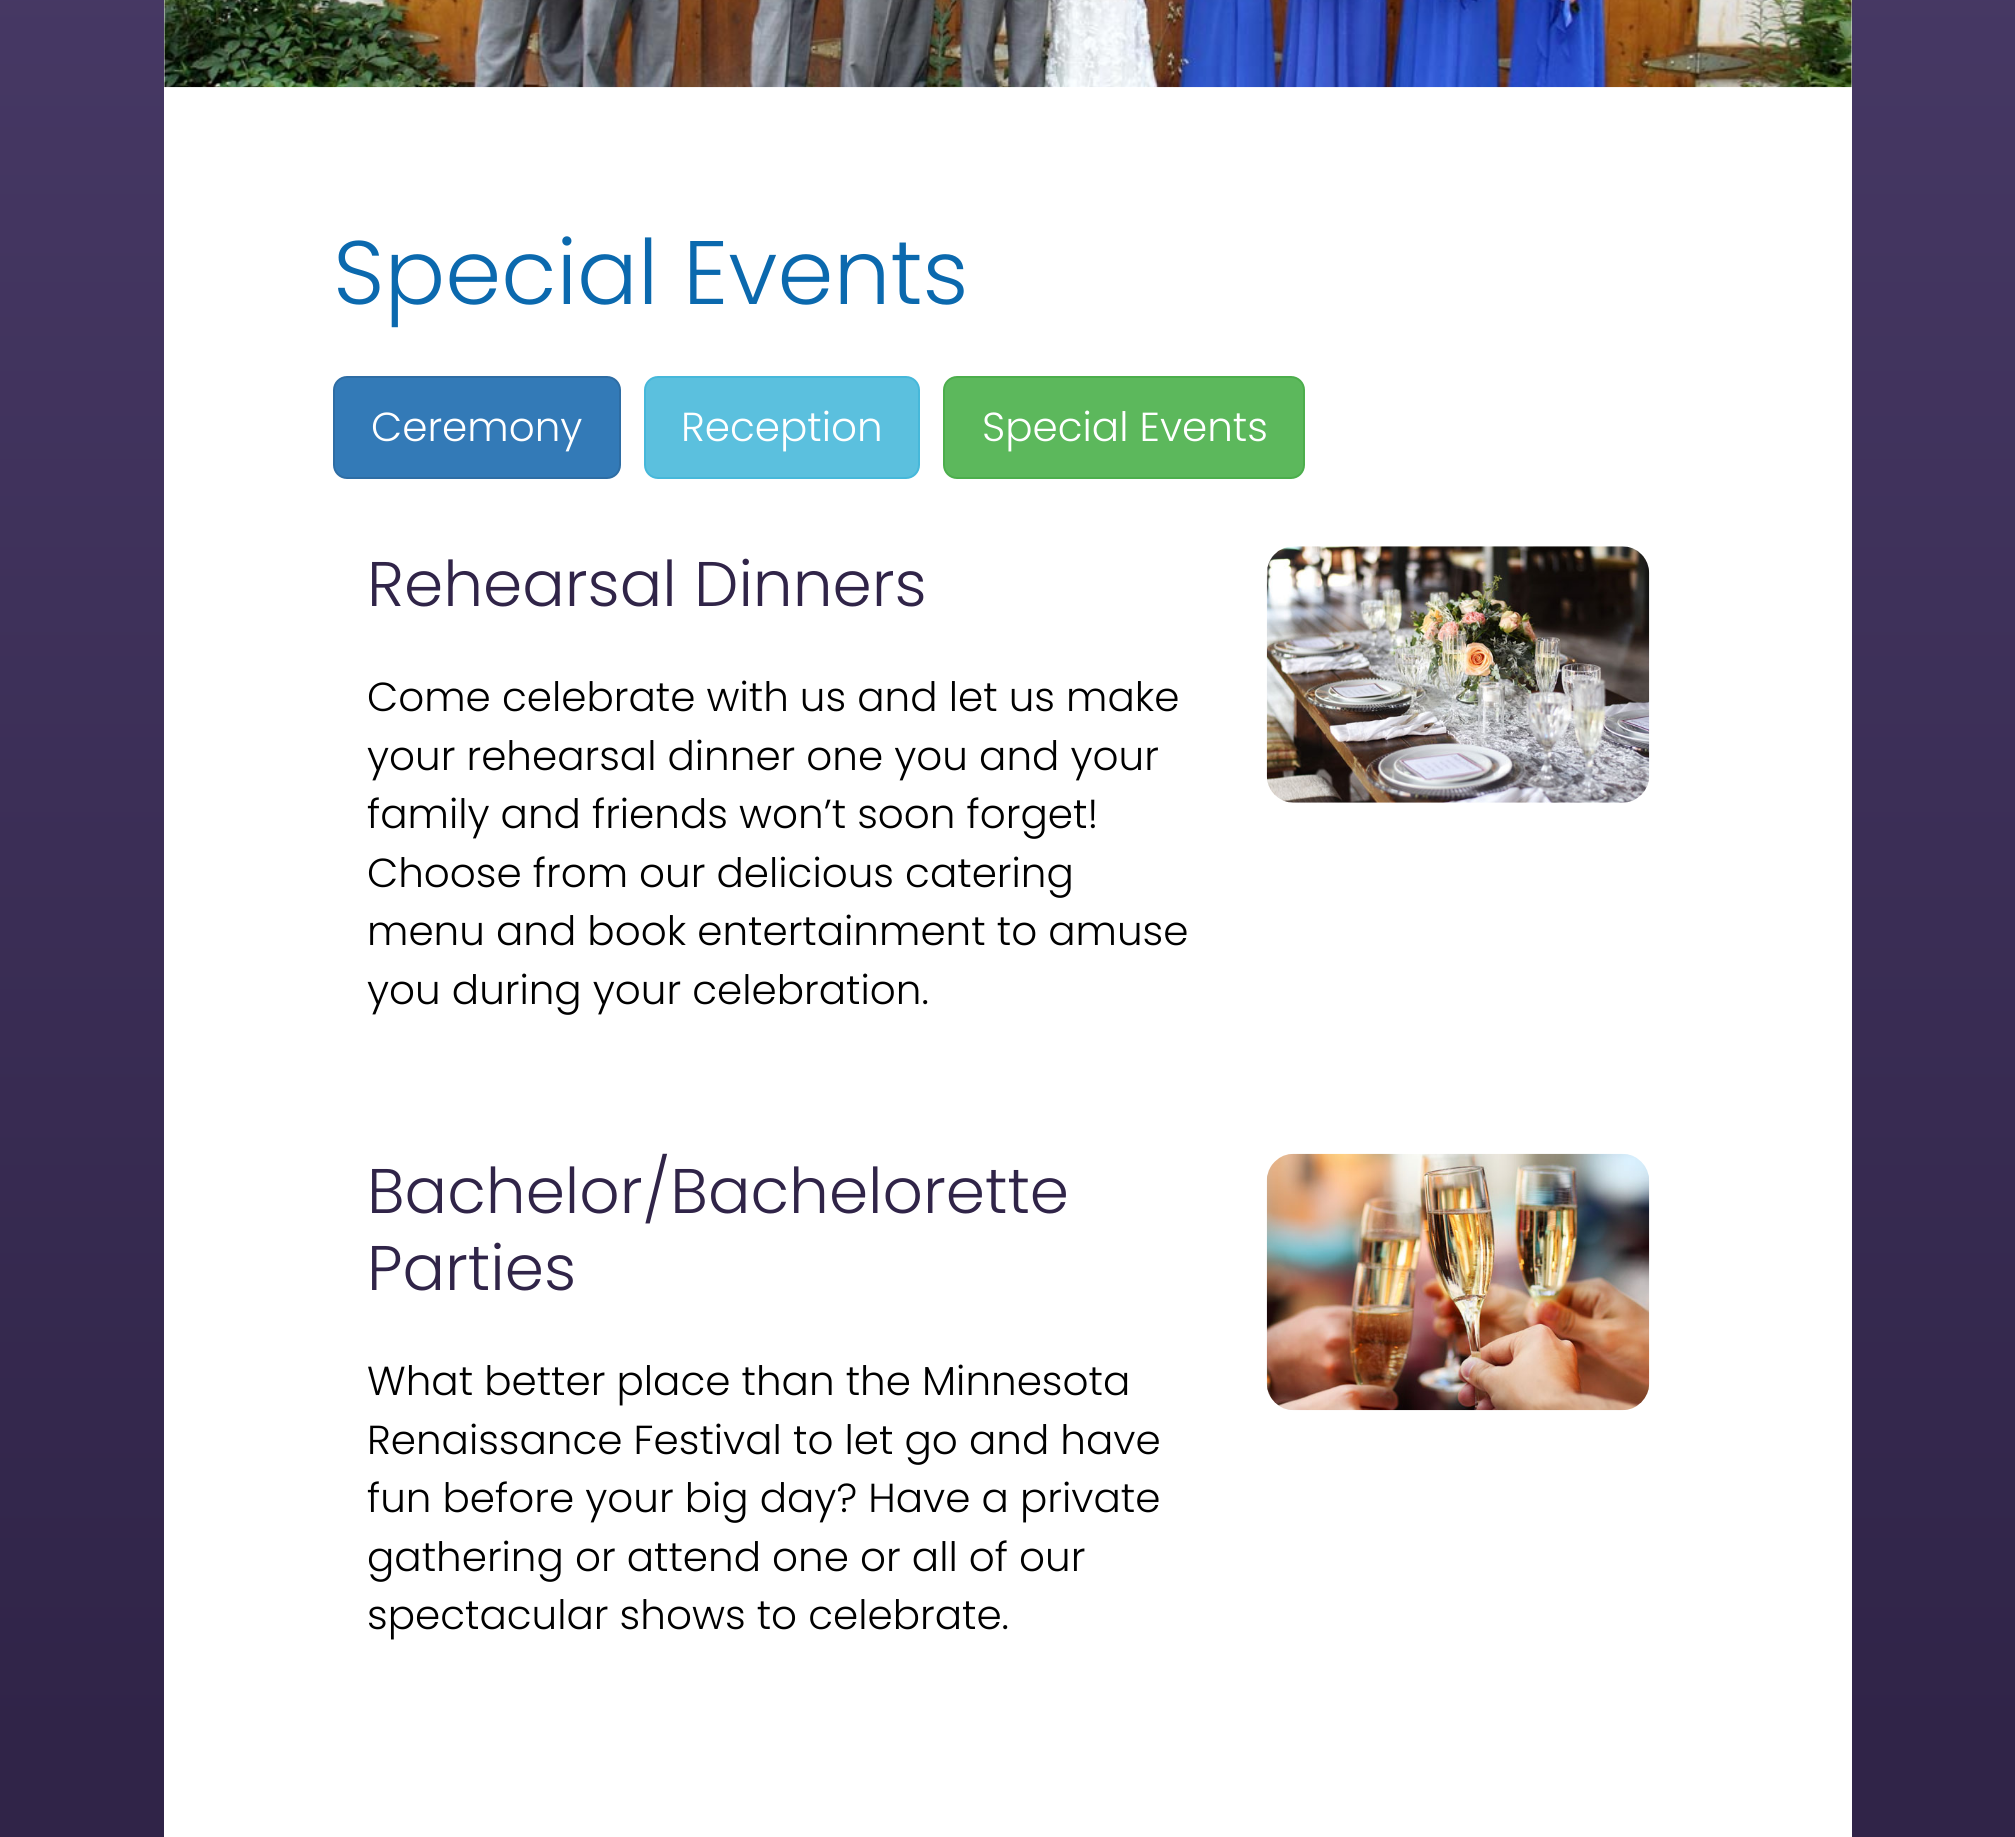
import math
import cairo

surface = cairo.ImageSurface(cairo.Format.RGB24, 2015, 1837)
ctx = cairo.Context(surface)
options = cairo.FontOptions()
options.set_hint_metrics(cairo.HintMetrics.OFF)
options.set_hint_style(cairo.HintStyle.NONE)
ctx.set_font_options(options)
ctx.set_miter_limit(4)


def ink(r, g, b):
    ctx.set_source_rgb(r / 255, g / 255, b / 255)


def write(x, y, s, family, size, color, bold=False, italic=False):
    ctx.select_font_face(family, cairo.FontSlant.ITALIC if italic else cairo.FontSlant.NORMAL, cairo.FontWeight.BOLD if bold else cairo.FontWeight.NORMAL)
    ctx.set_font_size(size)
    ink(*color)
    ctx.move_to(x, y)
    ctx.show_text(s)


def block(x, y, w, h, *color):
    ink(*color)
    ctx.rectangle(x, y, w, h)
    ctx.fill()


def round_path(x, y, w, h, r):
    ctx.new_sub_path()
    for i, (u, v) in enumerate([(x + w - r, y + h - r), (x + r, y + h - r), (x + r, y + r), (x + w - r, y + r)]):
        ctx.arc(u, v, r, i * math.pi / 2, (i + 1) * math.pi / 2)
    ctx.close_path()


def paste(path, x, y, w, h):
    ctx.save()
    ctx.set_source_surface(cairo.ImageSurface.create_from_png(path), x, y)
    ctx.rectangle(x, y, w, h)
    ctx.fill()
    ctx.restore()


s1 = dict(family="Poppins Light", size=90, color=(11, 105, 174))
s2 = dict(family="Poppins Light", size=40.5, color=(255, 255, 255))
s3 = dict(family="Poppins Light", size=63, color=(48, 36, 72))
s4 = dict(family="Poppins Light", size=40.5, color=(0, 0, 0))

ink(255, 255, 255)
ctx.paint()
gradient = cairo.LinearGradient(1008, -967, 1008, 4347)
gradient.add_color_stop_rgba(0.01, 0.318, 0.259, 0.447, 1)
gradient.add_color_stop_rgba(0.51, 0.188, 0.141, 0.282, 1)
gradient.add_color_stop_rgba(1, 0.188, 0.141, 0.282, 1)
ctx.set_source(gradient)
ctx.rectangle(0, 0, 2015, 1837)
ctx.fill()
block(164, 0, 1688, 1837, 255, 255, 255)
paste("pic1.png", 164, 0, 1688, 88)
write(333, 304, "Special Events", **s1)
ink(51, 122, 183)
round_path(334, 377, 286, 101, 13)
ctx.fill_preserve()
ink(46, 109, 164)
ctx.stroke()
write(371, 441, "Ceremony", **s2)
ink(91, 192, 222)
round_path(645, 377, 274, 101, 13)
ctx.fill_preserve()
ink(70, 184, 218)
ctx.stroke()
write(681, 441, "Reception", **s2)
ink(92, 184, 92)
round_path(944, 377, 360, 101, 13)
ctx.fill_preserve()
ink(76, 174, 76)
ctx.stroke()
write(982, 441, "Special Events", **s2)
write(367, 606, "Rehearsal Dinners", **s3)
write(367, 711, "Come celebrate with us and let us make", **s4)
write(367, 770, "your rehearsal dinner one you and your", **s4)
write(367, 828, "family and friends won’t soon forget!", **s4)
write(367, 887, "Choose from our delicious catering", **s4)
write(367, 945, "menu and book entertainment to amuse", **s4)
write(367, 1004, "you during your celebration.", **s4)
paste("pic2.png", 1266, 546, 384, 257)
write(367, 1213, "Bachelor/Bachelorette", **s3)
write(367, 1290, "Parties", **s3)
write(367, 1395, "What better place than the Minnesota", **s4)
write(367, 1454, "Renaissance Festival to let go and have", **s4)
write(367, 1512, "fun before your big day? Have a private", **s4)
write(367, 1571, "gathering or attend one or all of our", **s4)
write(367, 1629, "spectacular shows to celebrate.", **s4)
paste("pic3.png", 1266, 1153, 384, 258)
surface.write_to_png("screenshot.png")
